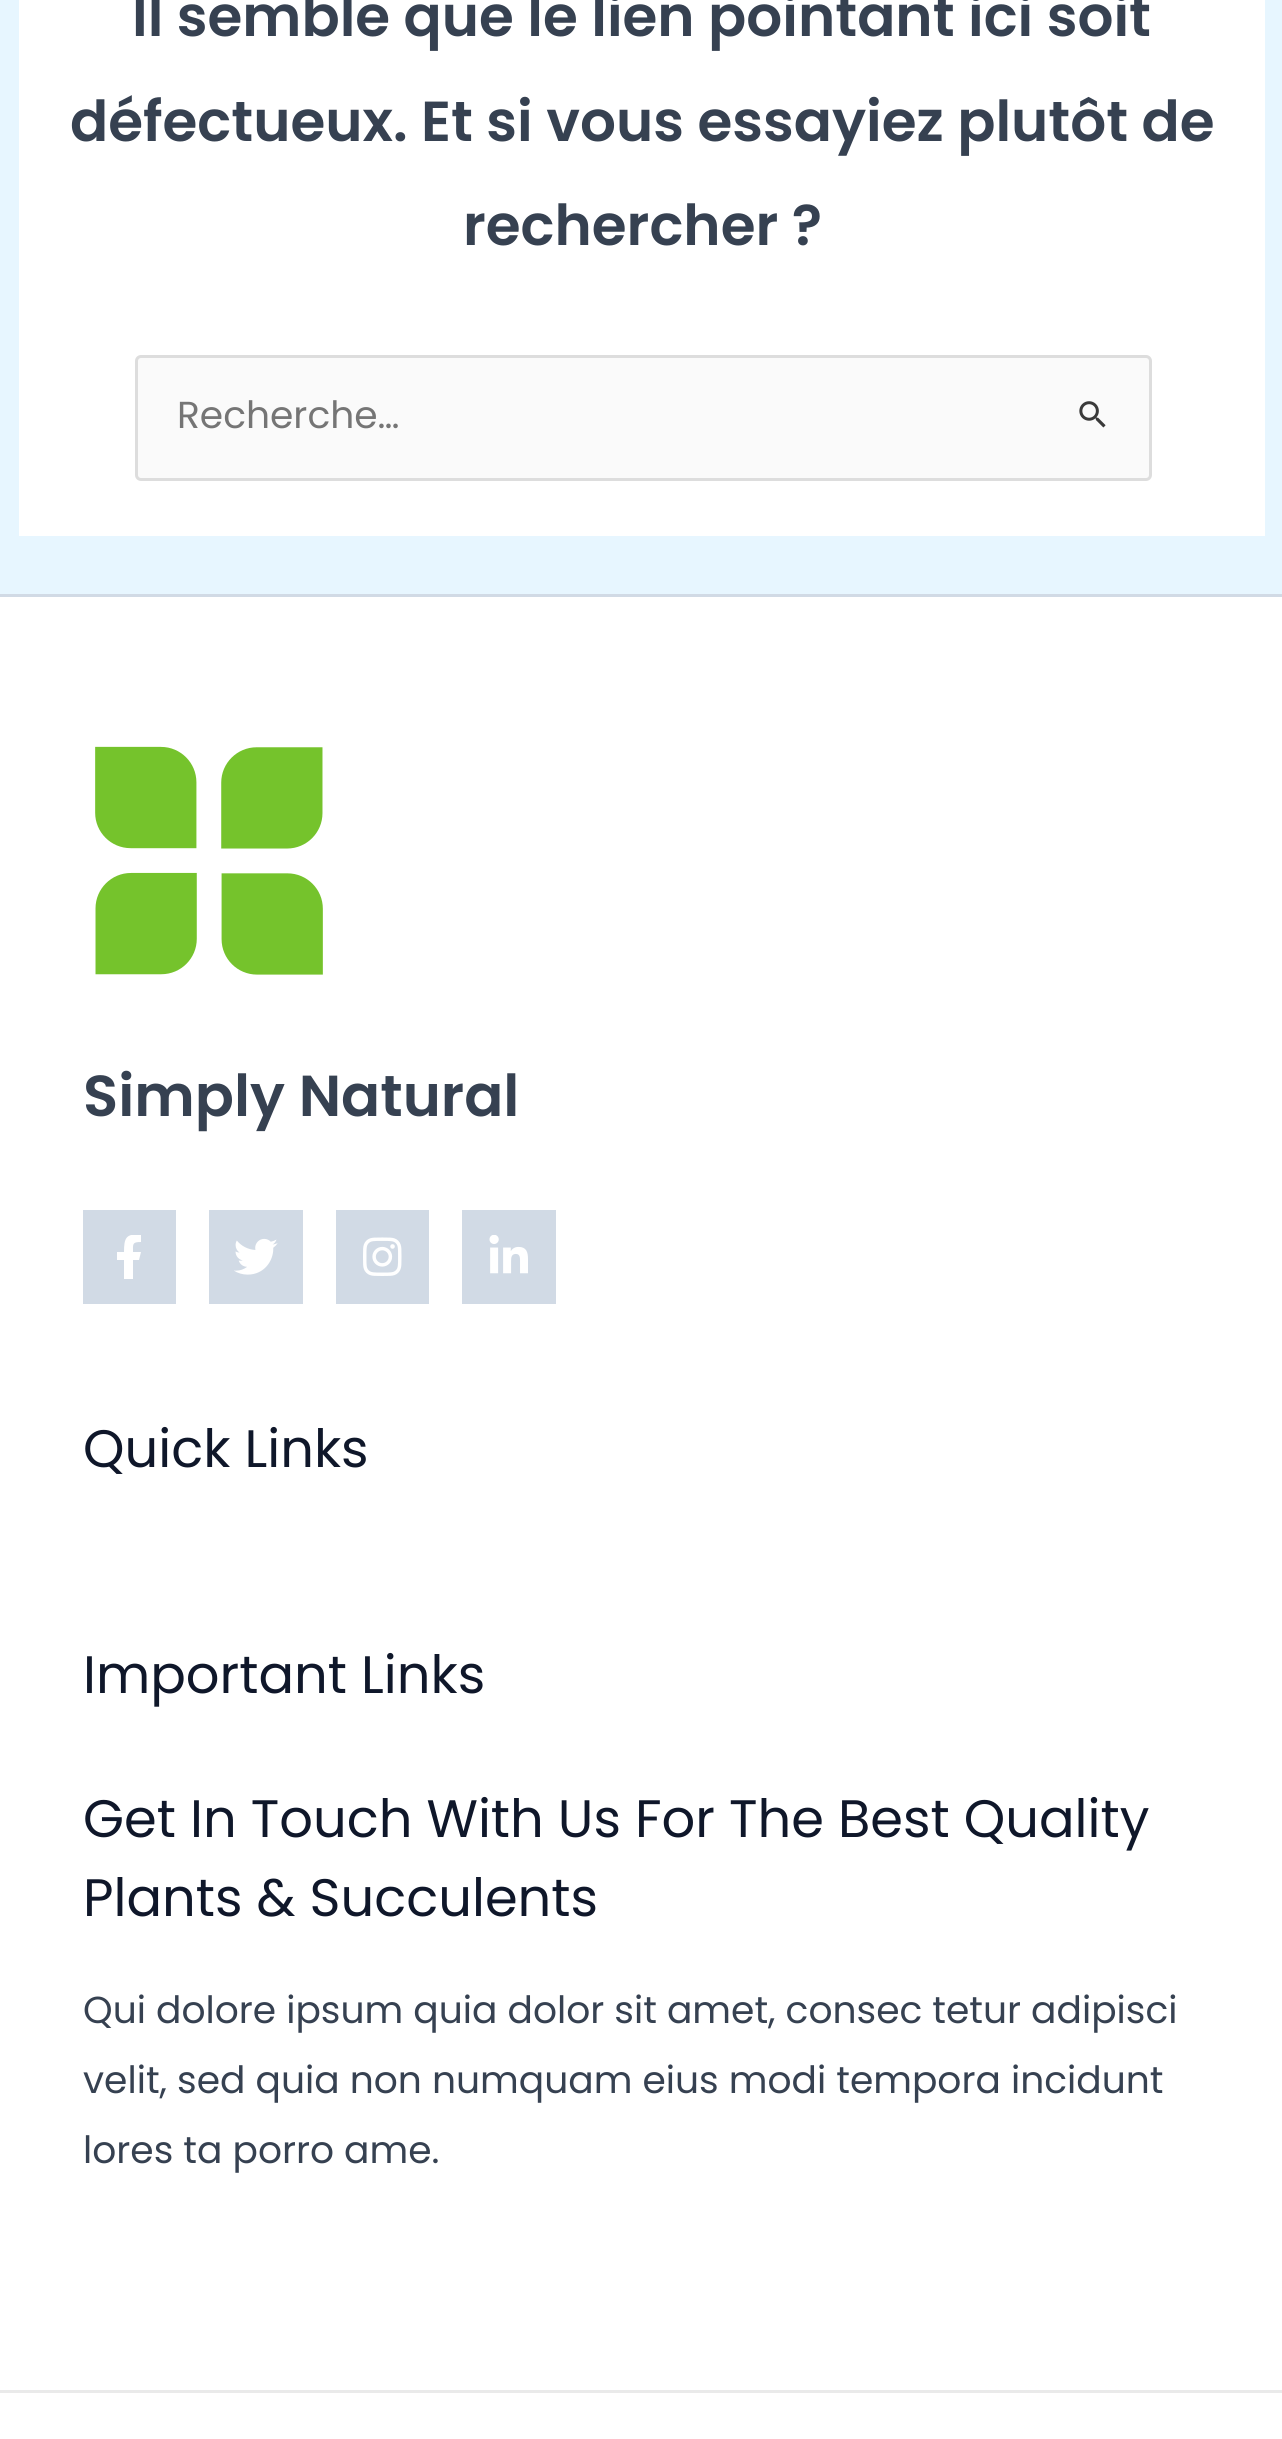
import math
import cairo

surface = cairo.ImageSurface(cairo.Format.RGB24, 1282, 2439)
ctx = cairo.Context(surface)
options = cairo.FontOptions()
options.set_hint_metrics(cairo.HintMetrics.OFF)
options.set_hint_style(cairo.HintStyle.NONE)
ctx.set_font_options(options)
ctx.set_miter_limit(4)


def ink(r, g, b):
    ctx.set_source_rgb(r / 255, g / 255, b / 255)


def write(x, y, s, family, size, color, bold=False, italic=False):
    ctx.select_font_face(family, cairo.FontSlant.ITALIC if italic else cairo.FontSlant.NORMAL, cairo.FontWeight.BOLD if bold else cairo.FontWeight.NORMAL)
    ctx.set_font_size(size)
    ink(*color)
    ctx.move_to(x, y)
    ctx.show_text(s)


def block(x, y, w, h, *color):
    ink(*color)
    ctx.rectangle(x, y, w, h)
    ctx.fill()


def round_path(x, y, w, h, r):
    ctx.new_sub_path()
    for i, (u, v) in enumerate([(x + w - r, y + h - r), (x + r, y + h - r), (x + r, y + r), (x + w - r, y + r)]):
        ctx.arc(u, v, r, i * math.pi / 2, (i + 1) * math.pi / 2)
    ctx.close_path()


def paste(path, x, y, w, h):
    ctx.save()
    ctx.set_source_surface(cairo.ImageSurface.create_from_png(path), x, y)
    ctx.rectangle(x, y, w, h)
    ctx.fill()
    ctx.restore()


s1 = dict(family="Poppins SemiBold", size=56.4, color=(54, 65, 81))
s2 = dict(family="Poppins", size=37.6, color=(117, 117, 117))
s3 = dict(family="Poppins SemiBold", size=57.75, color=(54, 65, 81))
s4 = dict(family="Poppins", size=52.7, color=(15, 23, 42))
s5 = dict(family="Poppins", size=37.6, color=(54, 65, 81))

ink(231, 246, 255)
ctx.paint()
block(19, 0, 1246, 536, 255, 255, 255)
write(132, 36, "Il semble que le lien pointant ici soit", **s1)
write(70, 141, "défectueux. Et si vous essayiez plutôt de", **s1)
write(463, 245, "rechercher ?", **s1)
ink(250, 250, 250)
round_path(136.5, 356.5, 1014, 123, 4.5)
ctx.fill_preserve()
ink(221, 221, 221)
ctx.set_line_width(3)
ctx.stroke()
write(177, 428, "Recherche…", **s2)
paste("pic1.png", 1079, 401, 27, 27)
block(0, 597, 1282, 1842, 255, 255, 255)
block(0, 594, 1282, 3, 209, 218, 229)
paste("pic2.png", 95, 746, 228, 229)
write(83, 1116, "Simply Natural", **s3)
block(83, 1210, 93, 94, 209, 218, 229)
ctx.save()
ctx.rectangle(107, 1235, 44, 44)
ctx.clip()
ink(255, 255, 255)
ctx.new_path()
ctx.move_to(139, 1260)
ctx.line_to(141, 1252)
ctx.line_to(133, 1252)
ctx.curve_to(133, 1244, 132, 1242, 141, 1242)
ctx.line_to(141, 1235)
ctx.curve_to(126, 1233, 124, 1238, 124, 1252)
ctx.line_to(117, 1252)
ctx.line_to(117, 1260)
ctx.line_to(124, 1260)
ctx.line_to(124, 1279)
ctx.line_to(133, 1279)
ctx.line_to(133, 1260)
ctx.close_path()
ctx.fill()
ctx.restore()
block(209, 1210, 94, 94, 209, 218, 229)
paste("pic3.png", 234, 1238, 44, 37)
block(336, 1210, 93, 94, 209, 218, 229)
paste("pic4.png", 363, 1237, 39, 39)
block(462, 1210, 94, 94, 209, 218, 229)
paste("pic5.png", 489, 1235, 39, 39)
write(83, 1467, "Quick Links", **s4)
write(83, 1693, "Important Links", **s4)
write(83, 1837, "Get In Touch With Us For The Best Quality", **s4)
write(83, 1916, "Plants & Succulents", **s4)
write(83, 2023, "Qui dolore ipsum quia dolor sit amet, consec tetur adipisci", **s5)
write(83, 2093, "velit, sed quia non numquam eius modi tempora incidunt", **s5)
write(83, 2163, "lores ta porro ame.", **s5)
block(0, 2390, 1282, 3, 234, 234, 234)
surface.write_to_png("screenshot.png")
